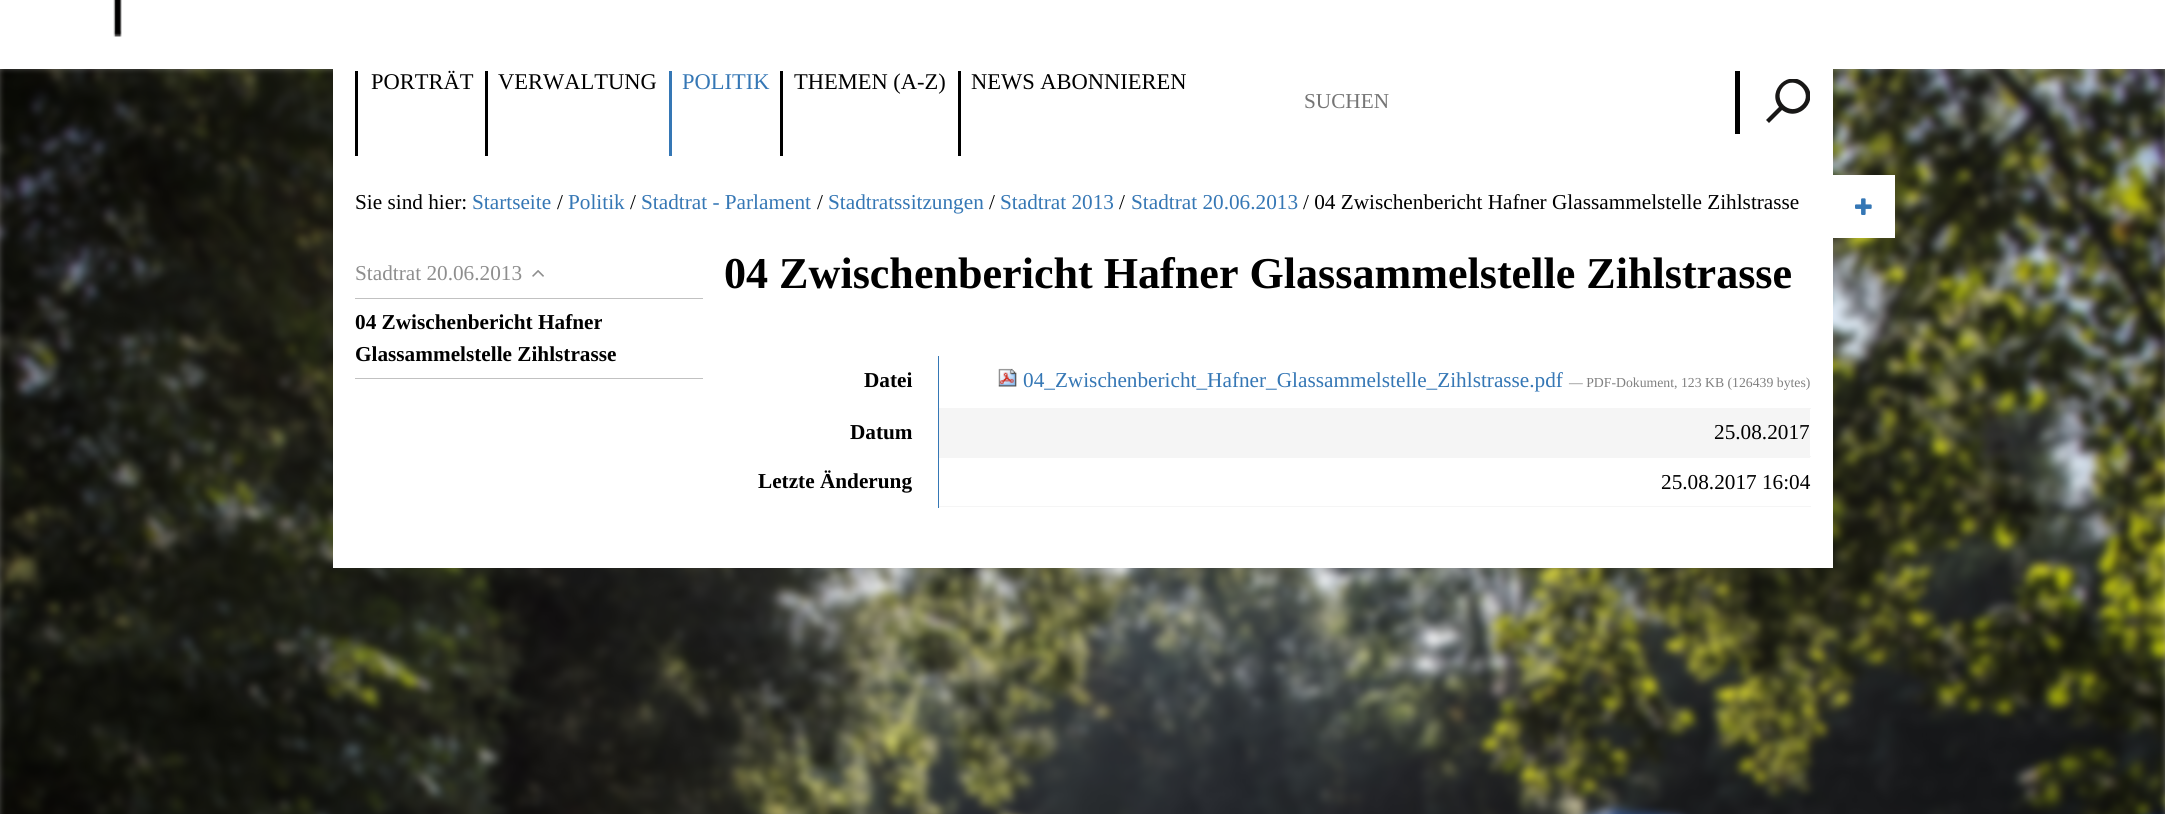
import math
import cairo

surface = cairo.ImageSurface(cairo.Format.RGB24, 2165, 814)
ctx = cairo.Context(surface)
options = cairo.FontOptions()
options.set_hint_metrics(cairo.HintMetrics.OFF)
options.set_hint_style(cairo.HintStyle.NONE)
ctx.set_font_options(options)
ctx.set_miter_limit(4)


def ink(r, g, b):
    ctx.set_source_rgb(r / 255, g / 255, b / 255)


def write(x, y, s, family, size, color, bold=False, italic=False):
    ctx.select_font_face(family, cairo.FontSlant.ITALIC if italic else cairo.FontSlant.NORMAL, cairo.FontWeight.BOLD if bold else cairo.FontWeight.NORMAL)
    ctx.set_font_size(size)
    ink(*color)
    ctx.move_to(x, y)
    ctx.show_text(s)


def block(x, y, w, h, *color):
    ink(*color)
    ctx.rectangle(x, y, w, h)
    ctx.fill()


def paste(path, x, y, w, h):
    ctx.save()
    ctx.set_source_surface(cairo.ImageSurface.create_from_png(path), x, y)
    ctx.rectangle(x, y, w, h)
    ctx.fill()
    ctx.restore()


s1 = dict(family="Liberation Serif", size=22.5, color=(0, 0, 0))
s2 = dict(family="Liberation Serif", size=22.5, color=(53, 119, 181))
s3 = dict(family="Liberation Serif", size=21.25, color=(117, 117, 117))
s4 = dict(family="Liberation Serif", size=21.25, color=(0, 0, 0))
s5 = dict(family="Liberation Serif", size=21.25, color=(53, 119, 181))
s6 = dict(family="Liberation Serif", size=21.25, color=(142, 142, 142))
s7 = dict(family="Liberation Serif", size=21.25, color=(0, 0, 0), bold=True)
s8 = dict(family="Liberation Serif", size=44.1, color=(0, 0, 0), bold=True)
s9 = dict(family="Liberation Serif", size=13.75, color=(128, 128, 128))

ink(255, 255, 255)
ctx.paint()
paste("pic1.png", 113, 0, 9, 37)
paste("pic2.png", 0, 69, 2165, 745)
block(333, 69, 1500, 499, 255, 255, 255)
block(355, 71, 3, 85, 0, 0, 0)
write(371, 89, "PORTRÄT", **s1)
block(485, 71, 3, 85, 0, 0, 0)
write(498, 89, "VERWALTUNG", **s1)
block(669, 71, 3, 85, 53, 119, 181)
write(682, 89, "POLITIK", **s2)
block(780, 71, 3, 85, 0, 0, 0)
write(794, 89, "THEMEN (A-Z)", **s1)
block(958, 71, 3, 85, 0, 0, 0)
write(971, 89, "NEWS ABONNIEREN", **s1)
write(1304, 108, "SUCHEN", **s3)
block(1735, 71, 5, 63, 0, 0, 0)
ctx.save()
ctx.rectangle(1766, 79, 44, 44)
ctx.clip()
ink(24, 23, 22)
ctx.new_path()
ctx.move_to(1802, 105)
ctx.curve_to(1790, 117, 1772, 100, 1783, 87)
ctx.curve_to(1795, 74, 1814, 93, 1802, 105)
ctx.move_to(1805, 84)
ctx.curve_to(1790, 68, 1766, 90, 1779, 107)
ctx.line_to(1766, 120)
ctx.line_to(1769, 123)
ctx.line_to(1782, 110)
ctx.curve_to(1799, 123, 1821, 99, 1805, 84)
ctx.fill()
ctx.restore()
write(355, 209, "Sie sind hier:", **s4)
write(472, 209, "Startseite", **s5)
write(557, 209, "/", **s4)
write(568, 209, "Politik", **s5)
write(630, 209, "/", **s4)
write(641, 209, "Stadtrat - Parlament", **s5)
write(817, 209, "/", **s4)
write(828, 209, "Stadtratssitzungen", **s5)
write(989, 209, "/", **s4)
write(1000, 209, "Stadtrat 2013", **s5)
write(1119, 209, "/", **s4)
write(1131, 209, "Stadtrat 20.06.2013", **s5)
write(1303, 209, "/ 04 Zwischenbericht Hafner Glassammelstelle Zihlstrasse", **s4)
block(355, 298, 348, 1, 193, 193, 193)
write(355, 280, "Stadtrat 20.06.2013", **s6)
paste("pic3.png", 532, 270, 12, 7)
block(355, 378, 348, 1, 193, 193, 193)
write(355, 329, "04 Zwischenbericht Hafner", **s7)
write(355, 361, "Glassammelstelle Zihlstrasse", **s7)
write(724, 288, "04 Zwischenbericht Hafner Glassammelstelle Zihlstrasse", **s8)
block(939, 409, 871, 49, 245, 245, 245)
block(938, 506, 873, 1, 245, 245, 245)
block(938, 456, 1, 52, 53, 119, 181)
block(938, 456, 873, 1, 245, 245, 245)
block(938, 408, 1, 50, 53, 119, 181)
block(938, 408, 873, 1, 245, 245, 245)
block(938, 356, 1, 53, 53, 119, 181)
write(864, 387, "Datei", **s7)
paste("pic4.png", 998, 368, 19, 19)
write(1023, 387, "04_Zwischenbericht_Hafner_Glassammelstelle_Zihlstrasse.pdf", **s5)
write(1569, 387, "— PDF-Dokument, 123 KB (126439 bytes)", **s9)
write(850, 439, "Datum", **s7)
write(1714, 439, "25.08.2017", **s4)
write(758, 488, "Letzte Änderung", **s7)
write(1661, 489, "25.08.2017 16:04", **s4)
block(1833, 175, 62, 63, 255, 255, 255)
paste("pic5.png", 1855, 198, 17, 17)
surface.write_to_png("screenshot.png")
